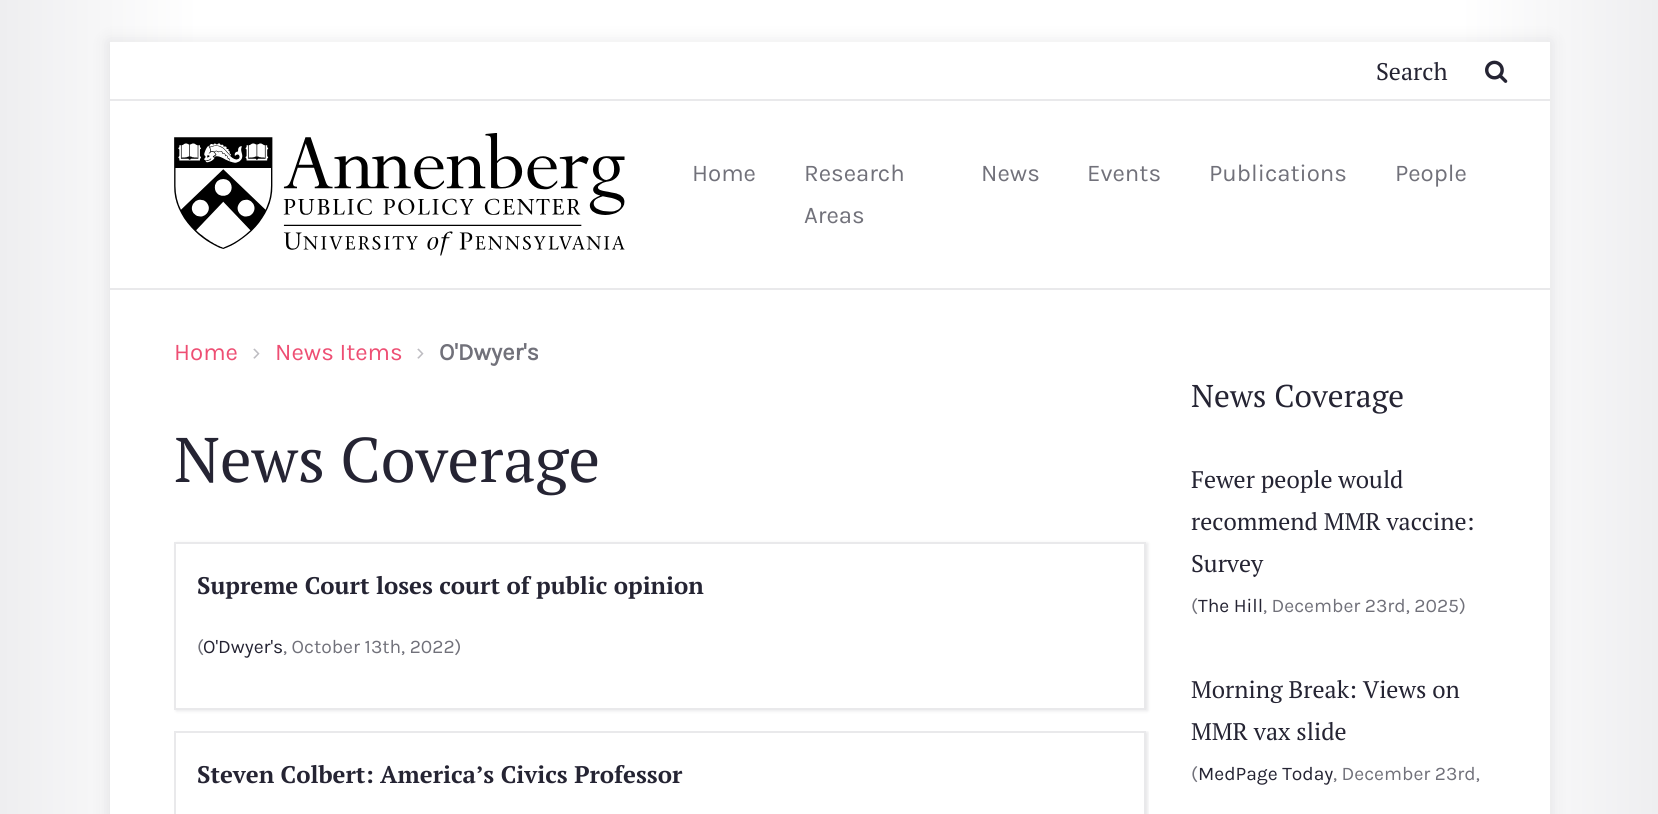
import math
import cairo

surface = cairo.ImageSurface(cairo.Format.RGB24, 1658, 814)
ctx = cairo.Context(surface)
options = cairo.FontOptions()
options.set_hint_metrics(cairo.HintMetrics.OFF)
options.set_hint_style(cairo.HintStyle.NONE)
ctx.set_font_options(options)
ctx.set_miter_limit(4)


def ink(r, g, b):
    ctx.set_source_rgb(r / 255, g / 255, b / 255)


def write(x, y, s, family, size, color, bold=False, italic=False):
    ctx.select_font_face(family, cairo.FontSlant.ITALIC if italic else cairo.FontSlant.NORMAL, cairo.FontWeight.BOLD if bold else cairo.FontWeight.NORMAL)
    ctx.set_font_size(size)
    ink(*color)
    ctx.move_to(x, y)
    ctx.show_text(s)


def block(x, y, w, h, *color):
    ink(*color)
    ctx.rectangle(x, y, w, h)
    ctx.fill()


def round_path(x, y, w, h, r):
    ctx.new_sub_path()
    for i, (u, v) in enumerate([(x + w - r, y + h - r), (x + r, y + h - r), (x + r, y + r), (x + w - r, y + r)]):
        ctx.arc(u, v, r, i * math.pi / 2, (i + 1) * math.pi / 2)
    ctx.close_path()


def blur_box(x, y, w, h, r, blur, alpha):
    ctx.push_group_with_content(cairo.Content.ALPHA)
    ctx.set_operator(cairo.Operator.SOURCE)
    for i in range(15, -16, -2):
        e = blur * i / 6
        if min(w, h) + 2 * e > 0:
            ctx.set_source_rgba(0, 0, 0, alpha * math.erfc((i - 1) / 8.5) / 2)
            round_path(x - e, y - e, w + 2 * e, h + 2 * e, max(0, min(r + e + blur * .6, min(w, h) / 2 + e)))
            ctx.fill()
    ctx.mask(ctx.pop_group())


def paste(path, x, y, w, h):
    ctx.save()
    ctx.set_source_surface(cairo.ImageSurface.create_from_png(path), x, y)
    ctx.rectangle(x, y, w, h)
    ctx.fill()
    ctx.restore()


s1 = dict(family="PT Serif", size=24, color=(37, 36, 51))
s2 = dict(family="Karla", size=24, color=(113, 113, 122))
s3 = dict(family="Karla", size=24, color=(238, 78, 115))
s4 = dict(family="Karla", size=24, color=(190, 189, 194))
s5 = dict(family="Karla", size=24, color=(113, 113, 122), bold=True)
s6 = dict(family="PT Serif", size=63, color=(37, 36, 51))
s7 = dict(family="PT Serif", size=24, color=(37, 36, 51), bold=True)
s8 = dict(family="Karla", size=19.25, color=(113, 113, 122))
s9 = dict(family="Karla", size=19.25, color=(37, 36, 51))
s10 = dict(family="PT Serif", size=31.5, color=(37, 36, 51))

ink(255, 255, 255)
ctx.paint()
gradient = cairo.LinearGradient(0, 407, 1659, 407)
gradient.add_color_stop_rgba(0, 0.933, 0.933, 0.941, 1)
gradient.add_color_stop_rgba(0.12, 1, 1, 1, 1)
gradient.add_color_stop_rgba(0.88, 1, 1, 1, 1)
gradient.add_color_stop_rgba(1, 0.933, 0.933, 0.941, 1)
ctx.set_source(gradient)
ctx.rectangle(0, 0, 1658, 814)
ctx.fill()
ink(37, 36, 51)
blur_box(108, 41, 1443, 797, 0, 8, 0.1)
block(110, 42, 1440, 772, 255, 255, 255)
write(1376, 80, "Search", **s1)
paste("pic1.png", 1485, 60, 23, 23)
block(110, 99, 1440, 2, 233, 233, 235)
block(110, 288, 1440, 2, 233, 233, 235)
paste("pic2.png", 174, 133, 451, 123)
write(692, 181, "Home", **s2)
write(804, 181, "Research", **s2)
write(804, 223, "Areas", **s2)
write(981, 181, "News", **s2)
write(1087, 181, "Events", **s2)
write(1209, 181, "Publications", **s2)
write(1395, 181, "People", **s2)
write(174, 360, "Home", **s3)
write(252, 360, "›", **s4)
write(275, 360, "News Items", **s3)
write(416, 360, "›", **s4)
write(439, 360, "O'Dwyer's", **s5)
write(174, 482, "News Coverage", **s6)
ink(37, 36, 51)
blur_box(176, 543, 972, 168, 0, 1.5, 0.1)
ink(255, 255, 255)
ctx.rectangle(175, 543, 970, 166)
ctx.fill_preserve()
ink(233, 233, 235)
ctx.stroke()
write(197, 594, "Supreme Court loses court of public opinion", **s7)
write(197, 653, "(", **s8)
write(203, 653, "O'Dwyer's", **s9)
write(283, 653, ", October 13th, 2022)", **s8)
ctx.save()
ctx.rectangle(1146, 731, 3, 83)
ctx.clip()
ink(37, 36, 51)
blur_box(176, 732, 972, 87, 0, 1.5, 0.1)
ctx.restore()
ctx.rectangle(175, 732, 970, 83)
ink(233, 233, 235)
ctx.stroke()
write(197, 783, "Steven Colbert: America’s Civics Professor", **s7)
write(1191, 407, "News Coverage", **s10)
write(1191, 488, "Fewer people would", **s1)
write(1191, 530, "recommend MMR vaccine:", **s1)
write(1191, 572, "Survey", **s1)
write(1191, 612, "(", **s8)
write(1198, 612, "The Hill", **s9)
write(1263, 612, ", December 23rd, 2025)", **s8)
write(1191, 698, "Morning Break: Views on", **s1)
write(1191, 740, "MMR vax slide", **s1)
write(1191, 780, "(", **s8)
write(1198, 780, "MedPage Today", **s9)
write(1333, 780, ", December 23rd,", **s8)
surface.write_to_png("screenshot.png")
